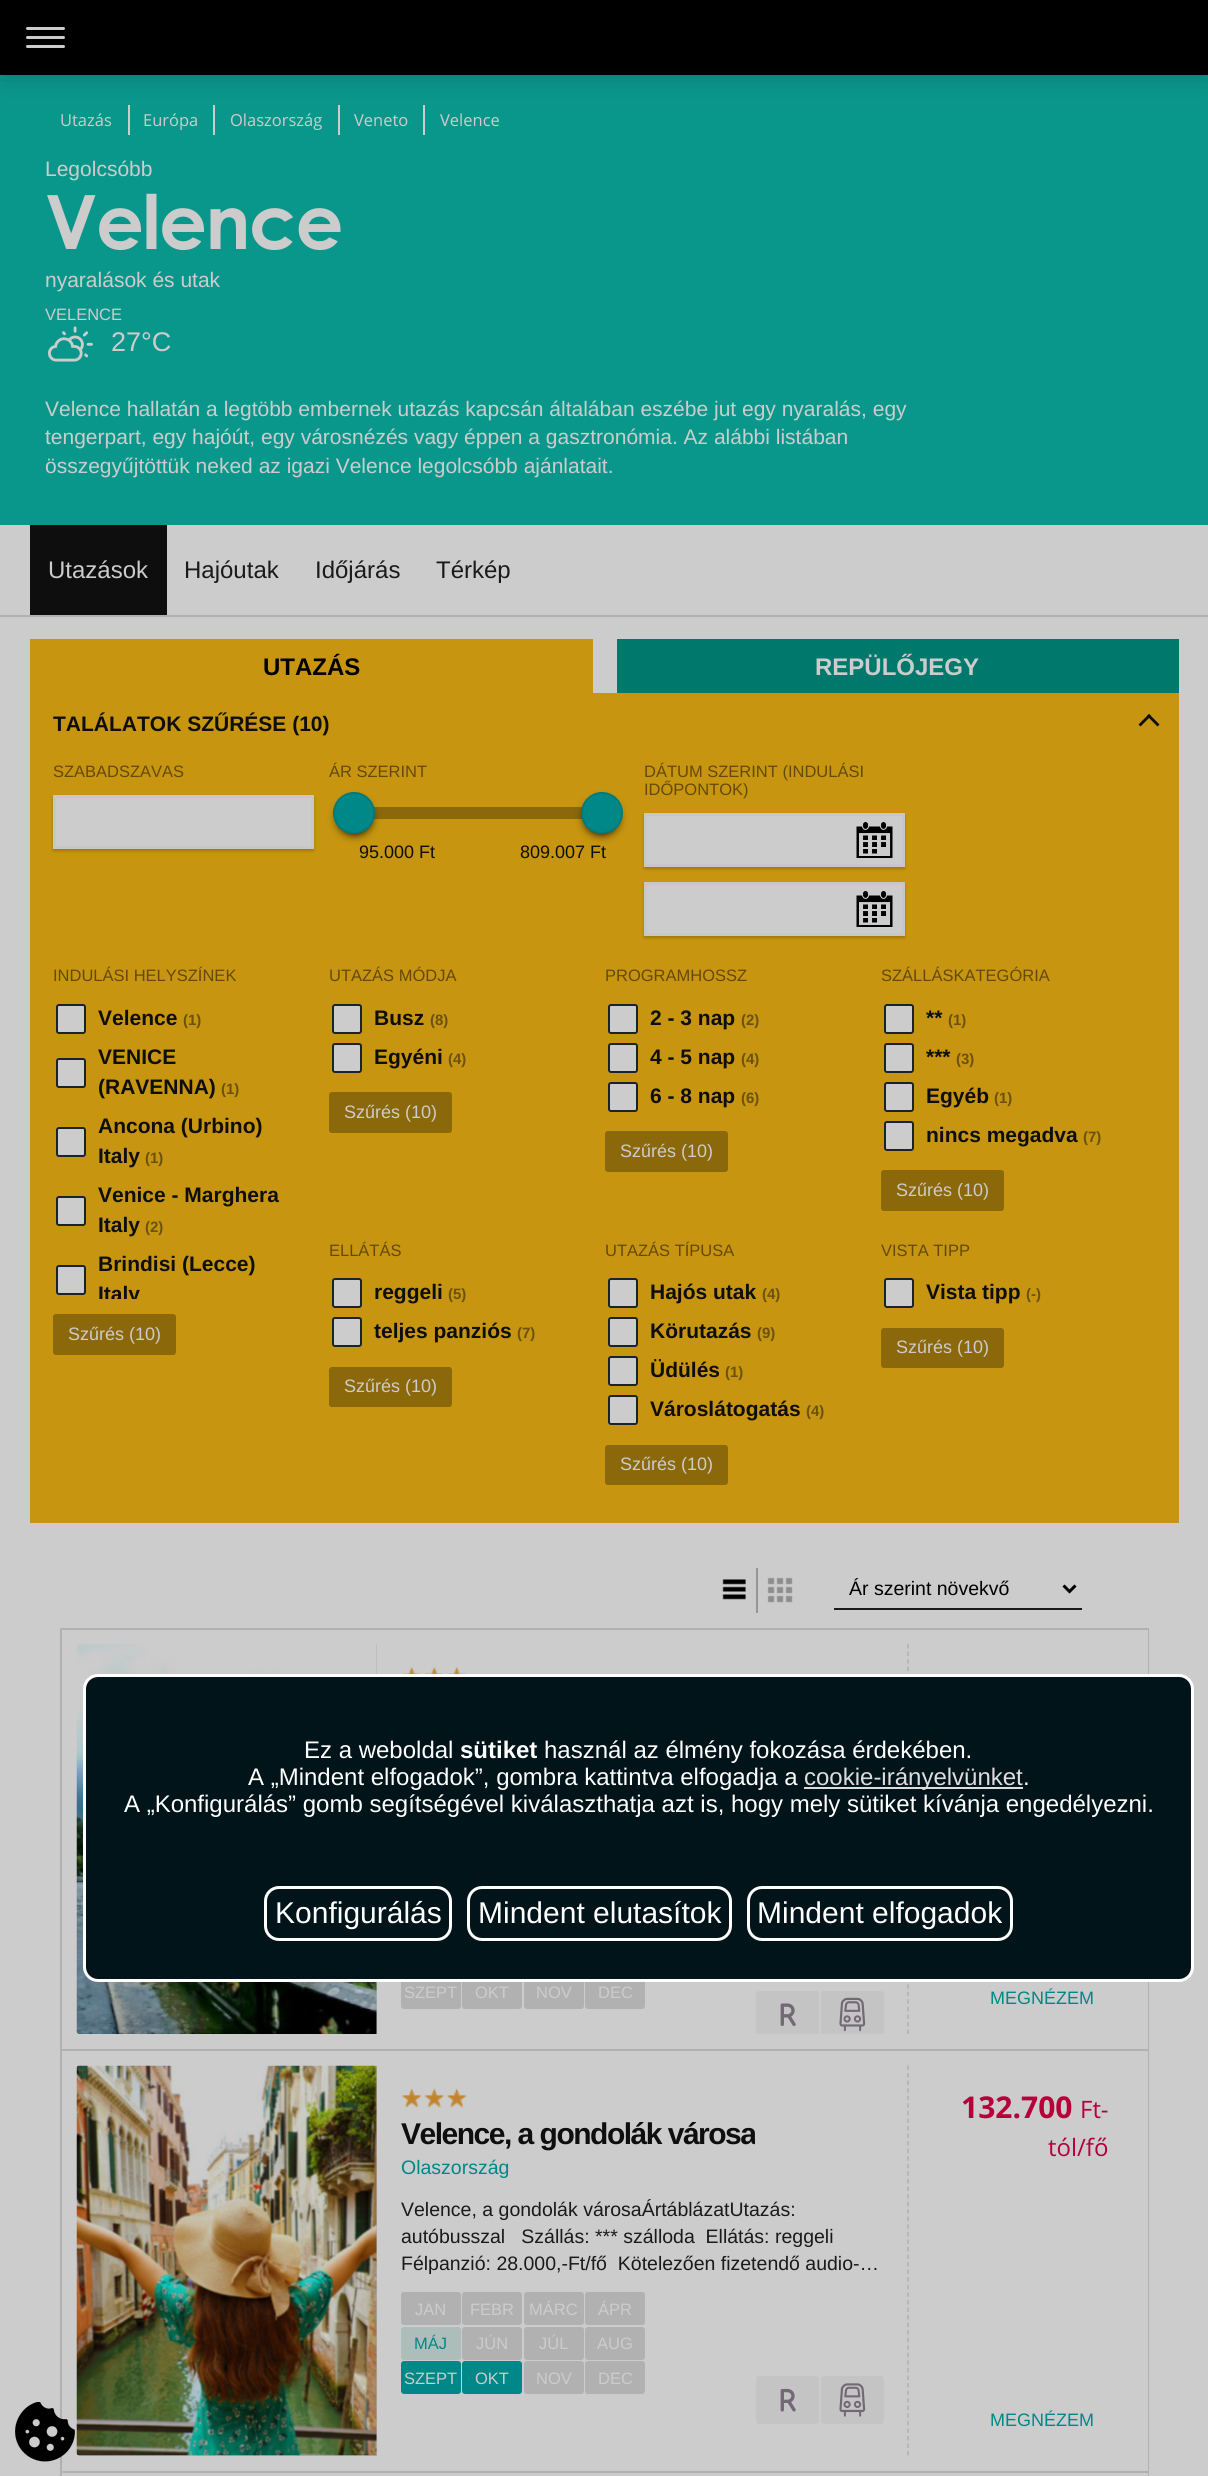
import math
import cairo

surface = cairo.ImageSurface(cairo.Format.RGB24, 1208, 2476)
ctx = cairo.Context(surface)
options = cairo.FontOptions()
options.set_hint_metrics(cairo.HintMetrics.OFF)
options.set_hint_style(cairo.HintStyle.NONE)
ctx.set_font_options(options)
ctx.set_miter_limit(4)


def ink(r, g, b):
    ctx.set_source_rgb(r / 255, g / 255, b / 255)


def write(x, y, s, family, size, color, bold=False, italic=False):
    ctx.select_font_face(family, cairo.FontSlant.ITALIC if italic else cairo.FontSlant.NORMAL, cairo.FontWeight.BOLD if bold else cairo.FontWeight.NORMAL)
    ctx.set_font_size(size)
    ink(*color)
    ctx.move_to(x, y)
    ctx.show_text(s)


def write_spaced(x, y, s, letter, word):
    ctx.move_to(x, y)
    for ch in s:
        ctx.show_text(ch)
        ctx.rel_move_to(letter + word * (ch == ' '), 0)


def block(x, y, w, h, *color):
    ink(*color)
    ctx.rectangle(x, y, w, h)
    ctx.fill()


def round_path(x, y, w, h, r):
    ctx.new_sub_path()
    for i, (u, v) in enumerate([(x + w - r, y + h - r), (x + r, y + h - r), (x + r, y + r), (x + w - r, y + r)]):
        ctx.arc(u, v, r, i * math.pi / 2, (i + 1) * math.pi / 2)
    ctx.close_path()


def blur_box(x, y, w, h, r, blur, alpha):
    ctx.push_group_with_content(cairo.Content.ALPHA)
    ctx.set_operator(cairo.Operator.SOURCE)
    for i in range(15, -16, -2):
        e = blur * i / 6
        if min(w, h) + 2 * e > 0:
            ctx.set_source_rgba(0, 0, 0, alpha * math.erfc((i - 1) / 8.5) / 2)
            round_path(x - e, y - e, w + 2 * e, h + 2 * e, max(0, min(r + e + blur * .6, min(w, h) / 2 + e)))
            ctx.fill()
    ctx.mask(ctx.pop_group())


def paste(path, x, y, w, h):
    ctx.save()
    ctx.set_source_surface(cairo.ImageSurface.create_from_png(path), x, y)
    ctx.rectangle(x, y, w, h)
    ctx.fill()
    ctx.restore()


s1 = dict(family="Open Sans", size=16.5, color=(204, 204, 204))
s2 = dict(family="Liberation Sans", size=21, color=(204, 204, 204))
s3 = dict(family="Liberation Sans", size=16.5, color=(204, 204, 204))
s4 = dict(family="Liberation Sans", size=27, color=(204, 204, 204))
s5 = dict(family="Liberation Sans", size=24, color=(204, 204, 204))
s6 = dict(family="Liberation Sans", size=24, color=(26, 26, 26))
s7 = dict(family="Liberation Sans", size=24, color=(0, 0, 0), bold=True)
s8 = dict(family="Liberation Sans", size=24, color=(204, 204, 204), bold=True)
s9 = dict(family="Liberation Sans", size=21, color=(14, 14, 14), bold=True)
s10 = dict(family="Liberation Sans", size=16.5, color=(100, 74, 8))
s11 = dict(family="Liberation Sans", size=18, color=(14, 14, 14))
s12 = dict(family="Liberation Sans", size=15, color=(106, 82, 14), bold=True)
s13 = dict(family="Liberation Sans", size=18, color=(204, 204, 204))
s14 = dict(family="Liberation Sans", size=19.5, color=(0, 0, 0))
s15 = dict(family="Liberation Sans", size=18, color=(0, 136, 136))
s16 = dict(family="Liberation Sans", size=19.5, color=(0, 136, 136))
s17 = dict(family="Liberation Sans", size=19.5, color=(26, 26, 26))
s18 = dict(family="Liberation Sans", size=16.5, color=(0, 136, 136))
s19 = dict(family="Open Sans", size=30, color=(181, 0, 59), bold=True)
s20 = dict(family="Open Sans", size=24, color=(181, 0, 59))
s21 = dict(family="Liberation Sans", size=24, color=(255, 255, 255))
s22 = dict(family="Liberation Sans", size=24, color=(255, 255, 255), bold=True)
s23 = dict(family="Liberation Sans", size=24, color=(221, 221, 221))
s24 = dict(family="Liberation Sans", size=30, color=(255, 255, 255))

ink(204, 204, 204)
ctx.paint()
block(0, 75, 1208, 450, 10, 151, 139)
block(128, 105, 2, 30, 204, 204, 204)
block(213, 105, 2, 30, 204, 204, 204)
block(338, 105, 2, 30, 204, 204, 204)
block(423, 105, 2, 30, 204, 204, 204)
ink(0, 0, 0)
blur_box(0, 0, 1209, 75, 0, 15, 0.2)
block(0, 0, 1208, 75, 0, 0, 0)
ink(204, 204, 204)
round_path(26, 36, 39, 3, 1.5)
ctx.fill()
round_path(26, 27, 39, 3, 1.5)
ctx.fill()
round_path(26, 45, 39, 3, 1.5)
ctx.fill()
write(60, 126, "Utazás", **s1)
write(143, 126, "Európa", **s1)
write(230, 126, "Olaszország", **s1)
write(354, 126, "Veneto", **s1)
write(440, 126, "Velence", **s1)
write(45, 176, "Legolcsóbb", **s2)
ctx.select_font_face("Century Gothic", cairo.FontSlant.NORMAL, cairo.FontWeight.BOLD)
ctx.set_font_size(75)
write_spaced(45, 249, "Velence", -1.5, 0)
write(45, 287, "nyaralások és utak", **s2)
write(45, 320, "VELENCE", **s3)
paste("pic1.png", 48, 326, 45, 36)
write(111, 351, "27°C", **s4)
write(45, 416, "Velence hallatán a legtöbb embernek utazás kapcsán általában eszébe jut egy nyaralás, egy", **s2)
write(45, 444, "tengerpart, egy hajóút, egy városnézés vagy éppen a gasztronómia. Az alábbi listában", **s2)
write(45, 473, "összegyűjtöttük neked az igazi Velence legolcsóbb ajánlatait.", **s2)
block(0, 615, 1208, 2, 177, 177, 177)
block(30, 525, 137, 90, 14, 14, 14)
write(48, 578, "Utazások", **s5)
write(184, 578, "Hajóutak", **s6)
write(315, 578, "Időjárás", **s6)
write(436, 578, "Térkép", **s6)
block(30, 693, 1149, 830, 199, 149, 15)
block(30, 639, 563, 54, 199, 149, 15)
write(263, 675, "UTAZÁS", **s7)
block(617, 639, 562, 54, 0, 121, 109)
write(815, 675, "REPÜLŐJEGY", **s8)
write(53, 731, "TALÁLATOK SZŰRÉSE (10)", **s9)
ctx.new_path()
ctx.move_to(1140.5, 726.5)
ctx.line_to(1138.5, 724.5)
ctx.line_to(1149, 714)
ctx.line_to(1151, 716)
ctx.close_path()
ctx.fill()
ctx.new_path()
ctx.move_to(1157.5, 726.5)
ctx.line_to(1147, 716)
ctx.line_to(1149, 714)
ctx.line_to(1159.5, 724.5)
ctx.close_path()
ctx.fill()
write(53, 777, "SZABADSZAVAS", **s10)
ink(0, 0, 0)
blur_box(53, 797, 261, 54, 0, 1.5, 0.2)
ink(204, 204, 204)
ctx.rectangle(54.5, 796.5, 258, 51)
ctx.fill_preserve()
ink(199, 199, 199)
ctx.set_line_width(3)
ctx.stroke()
write(329, 777, "ÁR SZERINT", **s10)
block(374, 807, 208, 12, 139, 104, 10)
ink(0, 0, 0)
blur_box(338, 801, 33, 33, 16.5, 4.5, 1)
ink(0, 136, 136)
ctx.arc(354, 813, 21, 0, 2 * math.pi)
ctx.fill()
ctx.arc(354, 813, 20, 0, 2 * math.pi)
ctx.set_source_rgba(0, 0, 0, 0.1)
ctx.set_line_width(2)
ctx.stroke()
ink(0, 0, 0)
blur_box(585, 801, 33, 33, 16.5, 4.5, 1)
ink(0, 136, 136)
ctx.arc(602, 813, 21, 0, 2 * math.pi)
ctx.fill()
ctx.arc(602, 813, 20, 0, 2 * math.pi)
ctx.set_source_rgba(0, 0, 0, 0.1)
ctx.stroke()
write(359, 858, "95.000 Ft", **s11)
write(520, 858, "809.007 Ft", **s11)
write(644, 777, "DÁTUM SZERINT (INDULÁSI", **s10)
write(644, 795, "IDŐPONTOK)", **s10)
ink(0, 0, 0)
blur_box(644, 815, 261, 54, 0, 1.5, 0.2)
block(647, 816, 255, 48, 204, 204, 204)
paste("pic2.png", 856, 822, 37, 36)
ctx.rectangle(645.5, 814.5, 258, 51)
ink(199, 199, 199)
ctx.set_line_width(3)
ctx.stroke()
ink(0, 0, 0)
blur_box(644, 884, 261, 54, 0, 1.5, 0.2)
block(647, 885, 255, 48, 204, 204, 204)
paste("pic2.png", 856, 891, 37, 36)
ctx.rectangle(645.5, 883.5, 258, 51)
ink(199, 199, 199)
ctx.stroke()
write(53, 981, "INDULÁSI HELYSZÍNEK", **s10)
ink(204, 204, 204)
round_path(57, 1005, 28, 28, 2)
ctx.fill_preserve()
ink(26, 34, 43)
ctx.set_line_width(2)
ctx.stroke()
write(98, 1025, "Velence", **s9)
write(183, 1025, "(1)", **s12)
ink(204, 204, 204)
round_path(57, 1059, 28, 28, 2)
ctx.fill_preserve()
ink(26, 34, 43)
ctx.stroke()
write(98, 1064, "VENICE", **s9)
write(98, 1094, "(RAVENNA)", **s9)
write(221, 1094, "(1)", **s12)
ink(204, 204, 204)
round_path(57, 1128, 28, 28, 2)
ctx.fill_preserve()
ink(26, 34, 43)
ctx.stroke()
write(98, 1133, "Ancona (Urbino)", **s9)
write(98, 1163, "Italy", **s9)
write(145, 1163, "(1)", **s12)
ink(204, 204, 204)
round_path(57, 1197, 28, 28, 2)
ctx.fill_preserve()
ink(26, 34, 43)
ctx.stroke()
write(98, 1202, "Venice - Marghera", **s9)
write(98, 1232, "Italy", **s9)
write(145, 1232, "(2)", **s12)
ink(204, 204, 204)
round_path(57, 1266, 28, 28, 2)
ctx.fill_preserve()
ink(26, 34, 43)
ctx.stroke()
write(98, 1271, "Brindisi (Lecce)", **s9)
ctx.save()
ctx.rectangle(53, 1245, 261, 54)
ctx.clip()
write(98, 1301, "Italy", **s9)
ctx.restore()
ink(139, 104, 10)
round_path(53, 1314, 123, 41, 3)
ctx.fill()
write(68, 1340, "Szűrés (10)", **s13)
write(329, 981, "UTAZÁS MÓDJA", **s10)
ink(204, 204, 204)
round_path(333, 1005, 28, 28, 2)
ctx.fill_preserve()
ink(26, 34, 43)
ctx.stroke()
write(374, 1025, "Busz", **s9)
write(430, 1025, "(8)", **s12)
ink(204, 204, 204)
round_path(333, 1044, 28, 28, 2)
ctx.fill_preserve()
ink(26, 34, 43)
ctx.stroke()
write(374, 1064, "Egyéni", **s9)
write(448, 1064, "(4)", **s12)
ink(139, 104, 10)
round_path(329, 1092, 123, 41, 3)
ctx.fill()
write(344, 1118, "Szűrés (10)", **s13)
write(605, 981, "PROGRAMHOSSZ", **s10)
ink(204, 204, 204)
round_path(609, 1005, 28, 28, 2)
ctx.fill_preserve()
ink(26, 34, 43)
ctx.stroke()
write(650, 1025, "2 - 3 nap", **s9)
write(741, 1025, "(2)", **s12)
ink(204, 204, 204)
round_path(609, 1044, 28, 28, 2)
ctx.fill_preserve()
ink(26, 34, 43)
ctx.stroke()
write(650, 1064, "4 - 5 nap", **s9)
write(741, 1064, "(4)", **s12)
ink(204, 204, 204)
round_path(609, 1083, 28, 28, 2)
ctx.fill_preserve()
ink(26, 34, 43)
ctx.stroke()
write(650, 1103, "6 - 8 nap", **s9)
write(741, 1103, "(6)", **s12)
ink(139, 104, 10)
round_path(605, 1131, 123, 41, 3)
ctx.fill()
write(620, 1157, "Szűrés (10)", **s13)
write(881, 981, "SZÁLLÁSKATEGÓRIA", **s10)
ink(204, 204, 204)
round_path(885, 1005, 28, 28, 2)
ctx.fill_preserve()
ink(26, 34, 43)
ctx.stroke()
write(926, 1025, "**", **s9)
write(948, 1025, "(1)", **s12)
ink(204, 204, 204)
round_path(885, 1044, 28, 28, 2)
ctx.fill_preserve()
ink(26, 34, 43)
ctx.stroke()
write(926, 1064, "***", **s9)
write(956, 1064, "(3)", **s12)
ink(204, 204, 204)
round_path(885, 1083, 28, 28, 2)
ctx.fill_preserve()
ink(26, 34, 43)
ctx.stroke()
write(926, 1103, "Egyéb", **s9)
write(994, 1103, "(1)", **s12)
ink(204, 204, 204)
round_path(885, 1122, 28, 28, 2)
ctx.fill_preserve()
ink(26, 34, 43)
ctx.stroke()
write(926, 1142, "nincs megadva", **s9)
write(1083, 1142, "(7)", **s12)
ink(139, 104, 10)
round_path(881, 1170, 123, 41, 3)
ctx.fill()
write(896, 1196, "Szűrés (10)", **s13)
write(329, 1256, "ELLÁTÁS", **s10)
ink(204, 204, 204)
round_path(333, 1279, 28, 28, 2)
ctx.fill_preserve()
ink(26, 34, 43)
ctx.stroke()
write(374, 1299, "reggeli", **s9)
write(448, 1299, "(5)", **s12)
ink(204, 204, 204)
round_path(333, 1318, 28, 28, 2)
ctx.fill_preserve()
ink(26, 34, 43)
ctx.stroke()
write(374, 1338, "teljes panziós", **s9)
write(517, 1338, "(7)", **s12)
ink(139, 104, 10)
round_path(329, 1367, 123, 40, 3)
ctx.fill()
write(344, 1392, "Szűrés (10)", **s13)
write(605, 1256, "UTAZÁS TÍPUSA", **s10)
ink(204, 204, 204)
round_path(609, 1279, 28, 28, 2)
ctx.fill_preserve()
ink(26, 34, 43)
ctx.stroke()
write(650, 1299, "Hajós utak", **s9)
write(762, 1299, "(4)", **s12)
ink(204, 204, 204)
round_path(609, 1318, 28, 28, 2)
ctx.fill_preserve()
ink(26, 34, 43)
ctx.stroke()
write(650, 1338, "Körutazás", **s9)
write(757, 1338, "(9)", **s12)
ink(204, 204, 204)
round_path(609, 1357, 28, 28, 2)
ctx.fill_preserve()
ink(26, 34, 43)
ctx.stroke()
write(650, 1377, "Üdülés", **s9)
write(725, 1377, "(1)", **s12)
ink(204, 204, 204)
round_path(609, 1396, 28, 28, 2)
ctx.fill_preserve()
ink(26, 34, 43)
ctx.stroke()
write(650, 1416, "Városlátogatás", **s9)
write(806, 1416, "(4)", **s12)
ink(139, 104, 10)
round_path(605, 1445, 123, 40, 3)
ctx.fill()
write(620, 1470, "Szűrés (10)", **s13)
write(881, 1256, "VISTA TIPP", **s10)
ink(204, 204, 204)
round_path(885, 1279, 28, 28, 2)
ctx.fill_preserve()
ink(26, 34, 43)
ctx.stroke()
write(926, 1299, "Vista tipp", **s9)
write(1026, 1299, "(-)", **s12)
ink(139, 104, 10)
round_path(881, 1328, 123, 40, 3)
ctx.fill()
write(896, 1353, "Szűrés (10)", **s13)
paste("pic3.png", 722, 1579, 24, 21)
block(756, 1568, 2, 45, 150, 150, 150)
paste("pic4.png", 767, 1577, 26, 26)
block(834, 1608, 248, 2, 26, 26, 26)
ctx.new_path()
ctx.move_to(1063.5, 1585.5)
ctx.line_to(1069.5, 1591.5)
ctx.line_to(1075.5, 1585.5)
ink(0, 0, 0)
ctx.set_line_width(3)
ctx.stroke()
write(849, 1595, "Ár szerint növekvő", **s14)
block(60, 1628, 1089, 2, 177, 177, 177)
block(1148, 1628, 1, 848, 177, 177, 177)
block(60, 1628, 2, 848, 177, 177, 177)
block(62, 2049, 1086, 2, 177, 177, 177)
ctx.new_path()
ctx.move_to(80, 1644)
ctx.line_to(377, 1644)
ctx.line_to(377, 2034)
ctx.line_to(80, 2034)
ctx.curve_to(78.5, 2034, 77, 2032.5, 77, 2031)
ctx.line_to(77, 1647)
ctx.curve_to(77, 1645.5, 78.5, 1644, 80, 1644)
ctx.close_path()
ctx.fill()
paste("pic5.png", 76, 1644, 301, 390)
paste("pic6.png", 402, 1666, 65, 8)
paste("pic7.png", 402, 1667, 65, 7)
round_path(401, 1976, 60, 33, 3)
ctx.fill()
write(404, 1998, "SZEPT", **s3)
ink(177, 177, 177)
round_path(462, 1976, 60, 33, 3)
ctx.fill()
write(475, 1998, "OKT", **s3)
ink(177, 177, 177)
round_path(524, 1976, 60, 33, 3)
ctx.fill()
write(536, 1998, "NOV", **s3)
ink(177, 177, 177)
round_path(585, 1976, 60, 33, 3)
ctx.fill()
write(598, 1998, "DEC", **s3)
ink(196, 196, 196)
ctx.new_path()
ctx.move_to(759, 1991)
ctx.line_to(816, 1991)
ctx.curve_to(817.5, 1991, 819, 1992.5, 819, 1994)
ctx.line_to(819, 2034)
ctx.line_to(756, 2034)
ctx.line_to(756, 1994)
ctx.curve_to(756, 1992.5, 757.5, 1991, 759, 1991)
ctx.close_path()
ctx.fill()
paste("pic8.png", 780, 2003, 16, 23)
ctx.new_path()
ctx.move_to(824, 1991)
ctx.line_to(881, 1991)
ctx.curve_to(882.5, 1991, 884, 1992.5, 884, 1994)
ctx.line_to(884, 2034)
ctx.line_to(821, 2034)
ctx.line_to(821, 1994)
ctx.curve_to(821, 1992.5, 822.5, 1991, 824, 1991)
ctx.close_path()
ctx.fill()
paste("pic9.png", 839, 1997, 27, 35)
ctx.new_path()
ctx.move_to(908, 1644)
ctx.line_to(908, 2034)
ink(177, 177, 177)
ctx.set_line_width(1.5)
ctx.set_dash([4.5, 3.06])
ctx.stroke()
write(990, 2004, "MEGNÉZEM", **s15)
block(62, 2471, 1086, 2, 177, 177, 177)
ctx.new_path()
ctx.move_to(80, 2066)
ctx.line_to(377, 2066)
ctx.line_to(377, 2456)
ctx.line_to(80, 2456)
ctx.curve_to(78.5, 2456, 77, 2454.5, 77, 2453)
ctx.line_to(77, 2069)
ctx.curve_to(77, 2067.5, 78.5, 2066, 80, 2066)
ctx.close_path()
ctx.fill()
paste("pic10.png", 76, 2065, 301, 391)
paste("pic11.png", 402, 2088, 65, 20)
paste("pic12.png", 402, 2088, 65, 20)
ctx.save()
ctx.rectangle(401, 2115, 354, 36)
ctx.clip()
ctx.select_font_face("Liberation Sans", cairo.FontSlant.NORMAL, cairo.FontWeight.BOLD)
ctx.set_font_size(30)
ink(14, 14, 14)
write_spaced(401, 2144, "Velence, a gondolák városa", -1.5, 0)
ctx.restore()
write(401, 2174, "Olaszország", **s16)
write(401, 2216, "Velence, a gondolák városaÁrtáblázatUtazás:", **s17)
write(401, 2243, "autóbusszal   Szállás: *** szálloda  Ellátás: reggeli", **s17)
write(401, 2270, "Félpanzió: 28.000,-Ft/fő  Kötelezően fizetendő audio-…", **s17)
ink(177, 177, 177)
round_path(401, 2292, 60, 33, 3)
ctx.fill()
write(415, 2315, "JAN", **s3)
ink(177, 177, 177)
round_path(462, 2292, 60, 33, 3)
ctx.fill()
write(470, 2315, "FEBR", **s3)
ink(177, 177, 177)
round_path(524, 2292, 60, 33, 3)
ctx.fill()
write(529, 2315, "MÁRC", **s3)
ink(177, 177, 177)
round_path(585, 2292, 60, 33, 3)
ctx.fill()
write(598, 2315, "ÁPR", **s3)
ink(173, 190, 186)
round_path(401, 2327, 60, 33, 3)
ctx.fill()
write(414, 2349, "MÁJ", **s18)
ink(177, 177, 177)
round_path(462, 2327, 60, 33, 3)
ctx.fill()
write(476, 2349, "JÚN", **s3)
ink(177, 177, 177)
round_path(524, 2327, 60, 33, 3)
ctx.fill()
write(539, 2349, "JÚL", **s3)
ink(177, 177, 177)
round_path(585, 2327, 60, 33, 3)
ctx.fill()
write(597, 2349, "AUG", **s3)
ink(0, 136, 136)
round_path(401, 2361, 60, 33, 3)
ctx.fill()
write(404, 2384, "SZEPT", **s3)
ink(0, 136, 136)
round_path(462, 2361, 60, 33, 3)
ctx.fill()
write(475, 2384, "OKT", **s3)
ink(177, 177, 177)
round_path(524, 2361, 60, 33, 3)
ctx.fill()
write(536, 2384, "NOV", **s3)
ink(177, 177, 177)
round_path(585, 2361, 60, 33, 3)
ctx.fill()
write(598, 2384, "DEC", **s3)
ink(196, 196, 196)
round_path(756, 2376, 63, 48, 3)
ctx.fill()
paste("pic13.png", 780, 2388, 16, 24)
round_path(821, 2376, 63, 48, 3)
ctx.fill()
paste("pic14.png", 839, 2383, 27, 34)
ctx.new_path()
ctx.move_to(908, 2065.5)
ctx.line_to(908, 2455.5)
ink(177, 177, 177)
ctx.stroke()
write(961, 2118, "132.700", **s19)
write(1080, 2118, "Ft-", **s20)
write(1048, 2156, "tól/fő", **s20)
write(990, 2426, "MEGNÉZEM", **s15)
ink(1, 20, 26)
round_path(84.5, 1675.5, 1108, 305, 13.5)
ctx.fill_preserve()
ink(255, 255, 255)
ctx.set_line_width(3)
ctx.set_dash([])
ctx.stroke()
write(304, 1758, "Ez a weboldal", **s21)
write(460, 1758, "sütiket", **s22)
write(544, 1758, "használ az élmény fokozása érdekében.", **s21)
write(248, 1785, "A „Mindent elfogadok”, gombra kattintva elfogadja a", **s21)
block(804, 1787, 219, 2, 221, 221, 221)
write(804, 1785, "cookie-irányelvünket", **s23)
write(1023, 1785, ".", **s21)
write(124, 1812, "A „Konfigurálás” gomb segítségével kiválaszthatja azt is, hogy mely sütiket kívánja engedélyezni.", **s21)
round_path(265.5, 1887.5, 185, 52, 13.5)
ctx.stroke()
write(275, 1923, "Konfigurálás", **s24)
round_path(468.5, 1887.5, 262, 52, 13.5)
ctx.stroke()
write(478, 1923, "Mindent elutasítok", **s24)
round_path(748.5, 1887.5, 263, 52, 13.5)
ctx.stroke()
write(757, 1923, "Mindent elfogadok", **s24)
paste("pic15.png", 15, 2402, 60, 60)
surface.write_to_png("screenshot.png")
